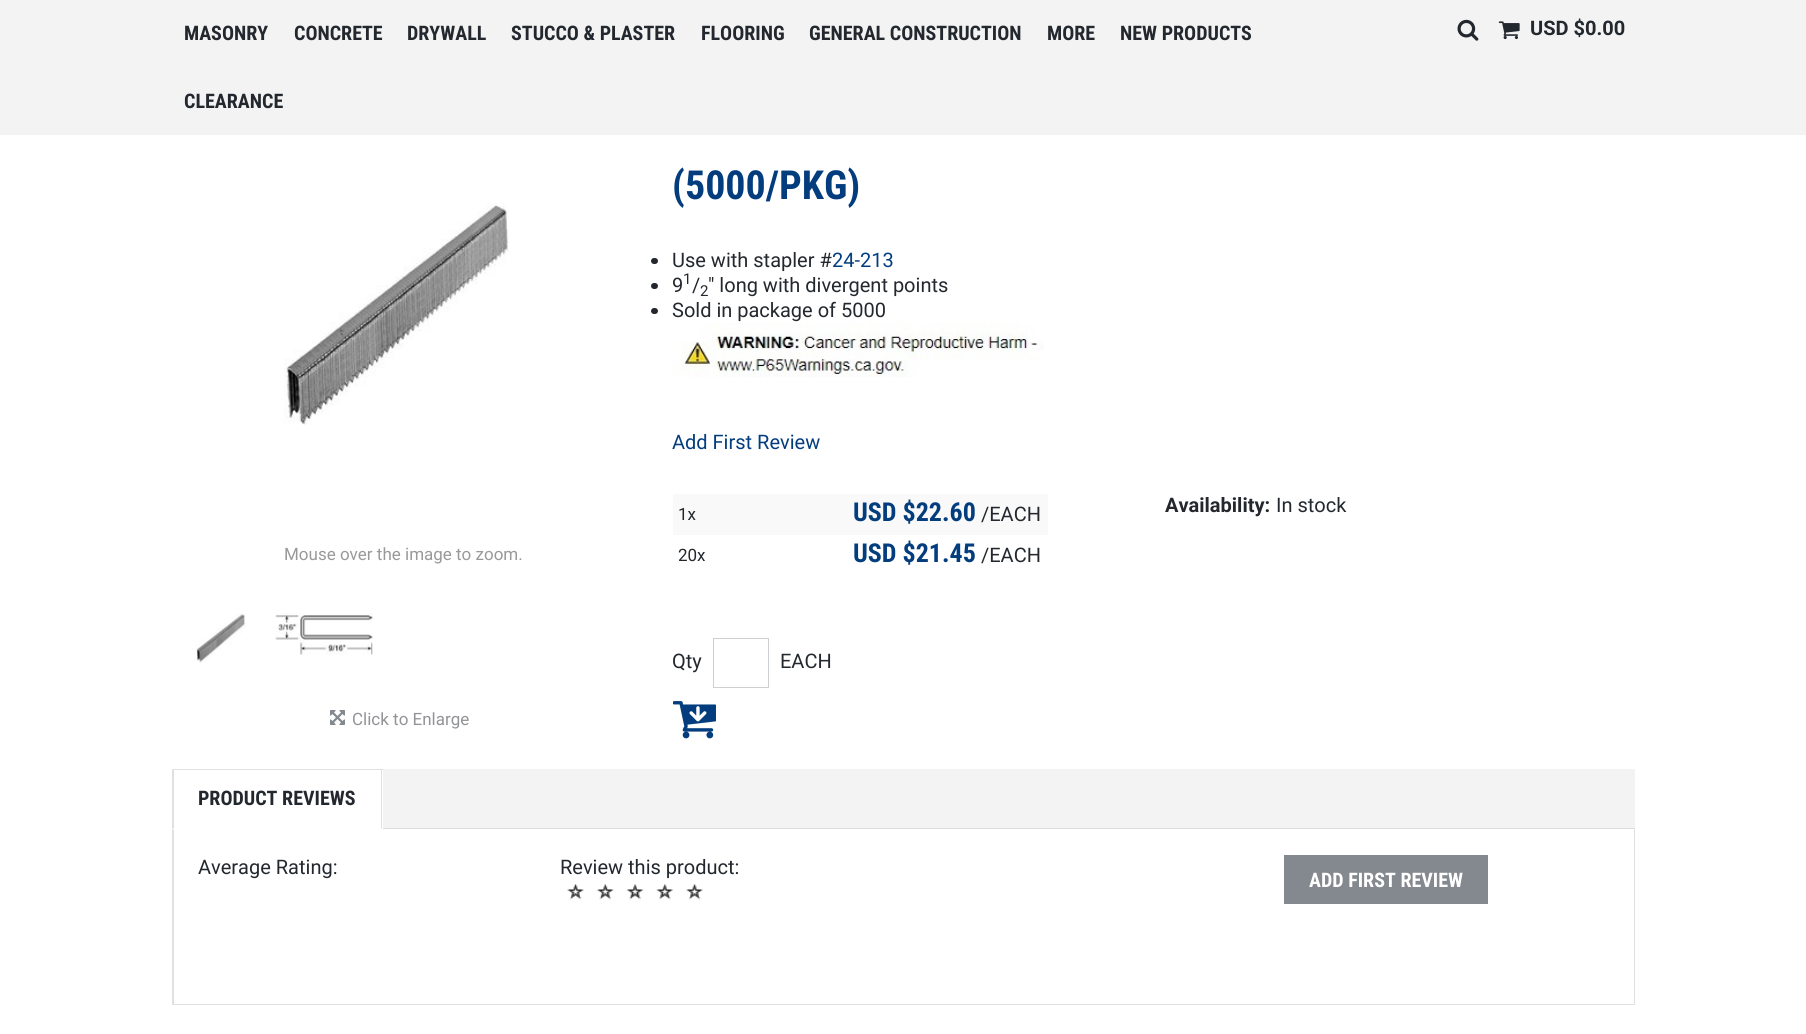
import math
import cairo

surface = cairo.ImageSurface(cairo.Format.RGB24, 1806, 1034)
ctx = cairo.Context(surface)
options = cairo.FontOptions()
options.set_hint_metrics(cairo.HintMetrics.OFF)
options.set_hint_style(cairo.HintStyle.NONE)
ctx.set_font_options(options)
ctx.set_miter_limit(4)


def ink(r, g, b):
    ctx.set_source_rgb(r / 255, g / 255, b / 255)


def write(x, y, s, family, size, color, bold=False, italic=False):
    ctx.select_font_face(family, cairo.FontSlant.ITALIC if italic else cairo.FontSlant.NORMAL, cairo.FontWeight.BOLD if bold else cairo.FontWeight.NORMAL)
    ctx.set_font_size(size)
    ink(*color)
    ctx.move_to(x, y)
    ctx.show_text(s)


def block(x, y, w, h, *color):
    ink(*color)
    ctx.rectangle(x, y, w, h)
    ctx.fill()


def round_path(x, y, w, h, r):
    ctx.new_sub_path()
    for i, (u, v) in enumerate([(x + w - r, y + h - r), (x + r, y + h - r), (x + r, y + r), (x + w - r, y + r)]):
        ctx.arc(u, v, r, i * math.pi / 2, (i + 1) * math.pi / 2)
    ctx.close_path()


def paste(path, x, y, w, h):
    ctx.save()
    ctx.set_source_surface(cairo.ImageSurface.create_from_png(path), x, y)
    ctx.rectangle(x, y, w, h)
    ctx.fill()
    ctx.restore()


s1 = dict(family="Roboto Condensed", size=20, color=(35, 40, 46), bold=True)
s2 = dict(family="Roboto", size=20, color=(35, 40, 46), bold=True)
s3 = dict(family="Roboto", size=17, color=(153, 153, 153))
s4 = dict(family="Roboto", size=17, color=(145, 147, 150))
s5 = dict(family="Roboto Condensed", size=40, color=(3, 61, 126), bold=True)
s6 = dict(family="Roboto", size=20, color=(35, 40, 46))
s7 = dict(family="Roboto", size=20, color=(3, 61, 126))
s8 = dict(family="Roboto", size=15, color=(35, 40, 46))
s9 = dict(family="Roboto", size=17, color=(35, 40, 46))
s10 = dict(family="Roboto Condensed", size=26, color=(3, 61, 126), bold=True)
s11 = dict(family="Roboto Condensed", size=20, color=(255, 255, 255), bold=True)

ink(255, 255, 255)
ctx.paint()
block(0, 0, 1806, 135, 243, 243, 243)
write(184, 40, "MASONRY", **s1)
write(294, 40, "CONCRETE", **s1)
write(407, 40, "DRYWALL", **s1)
write(511, 40, "STUCCO & PLASTER", **s1)
write(701, 40, "FLOORING", **s1)
write(809, 40, "GENERAL CONSTRUCTION", **s1)
write(1047, 40, "MORE", **s1)
write(1120, 40, "NEW PRODUCTS", **s1)
write(184, 108, "CLEARANCE", **s1)
paste("pic1.png", 1457, 19, 22, 22)
paste("pic2.png", 1498, 21, 22, 19)
write(1530, 35, "USD $0.00", **s2)
paste("pic3.png", 284, 203, 225, 222)
write(284, 560, "Mouse over the image to zoom.", **s3)
paste("pic4.png", 196, 613, 50, 50)
paste("pic5.png", 275, 613, 98, 42)
paste("pic6.png", 330, 710, 15, 15)
write(352, 725, "Click to Enlarge", **s4)
write(672, 199, "(5000/PKG)", **s5)
ink(35, 40, 46)
round_path(651, 258, 7, 6, 3)
ctx.fill()
write(672, 267, "Use with stapler #", **s6)
write(832, 267, "24-213", **s7)
ink(35, 40, 46)
round_path(651, 283, 7, 6, 3)
ctx.fill()
write(672, 292, "9", **s6)
write(683, 284, "1", **s8)
write(692, 292, "/", **s6)
write(700, 296, "2", **s8)
write(708, 292, "\" long with divergent points", **s6)
round_path(651, 308, 7, 6, 3)
ctx.fill()
write(672, 317, "Sold in package of 5000", **s6)
paste("pic7.png", 673, 323, 371, 55)
write(672, 449, "Add First Review", **s7)
block(673, 494, 375, 41, 249, 249, 249)
write(678, 520, "1x", **s9)
write(853, 521, "USD $22.60", **s10)
write(981, 521, "/EACH", **s6)
write(678, 561, "20x", **s9)
write(853, 562, "USD $21.45", **s10)
write(981, 562, "/EACH", **s6)
write(1165, 512, "Availability:", **s2)
write(1276, 512, "In stock", **s6)
write(672, 668, "Qty", **s6)
ctx.rectangle(713.5, 638.5, 55, 49)
ink(205, 208, 210)
ctx.set_line_width(1)
ctx.stroke()
write(780, 668, "EACH", **s6)
paste("pic8.png", 673, 701, 43, 38)
block(383, 769, 1252, 59, 243, 243, 243)
block(383, 828, 1252, 1, 221, 221, 221)
block(173, 769, 210, 1, 224, 224, 225)
ctx.new_path()
ctx.move_to(382, 769)
ctx.line_to(382, 829)
ctx.line_to(381, 828)
ctx.line_to(381, 770)
ctx.close_path()
ctx.fill()
ctx.new_path()
ctx.move_to(172, 829)
ctx.line_to(172, 769)
ctx.line_to(174, 770)
ctx.line_to(174, 828)
ctx.close_path()
ctx.fill()
write(198, 805, "PRODUCT REVIEWS", **s1)
ink(224, 224, 225)
ctx.new_path()
ctx.move_to(1635, 829)
ctx.line_to(1635, 1005)
ctx.line_to(1634, 1004)
ctx.line_to(1634, 830)
ctx.close_path()
ctx.fill()
block(173, 1004, 1462, 1, 224, 224, 225)
ctx.new_path()
ctx.move_to(172, 1005)
ctx.line_to(172, 829)
ctx.line_to(174, 830)
ctx.line_to(174, 1004)
ctx.close_path()
ctx.fill()
write(198, 874, "Average Rating:", **s6)
write(560, 874, "Review this product:", **s6)
paste("pic9.png", 567, 884, 136, 16)
block(1284, 855, 204, 49, 131, 137, 142)
write(1309, 887, "ADD FIRST REVIEW", **s11)
surface.write_to_png("screenshot.png")
